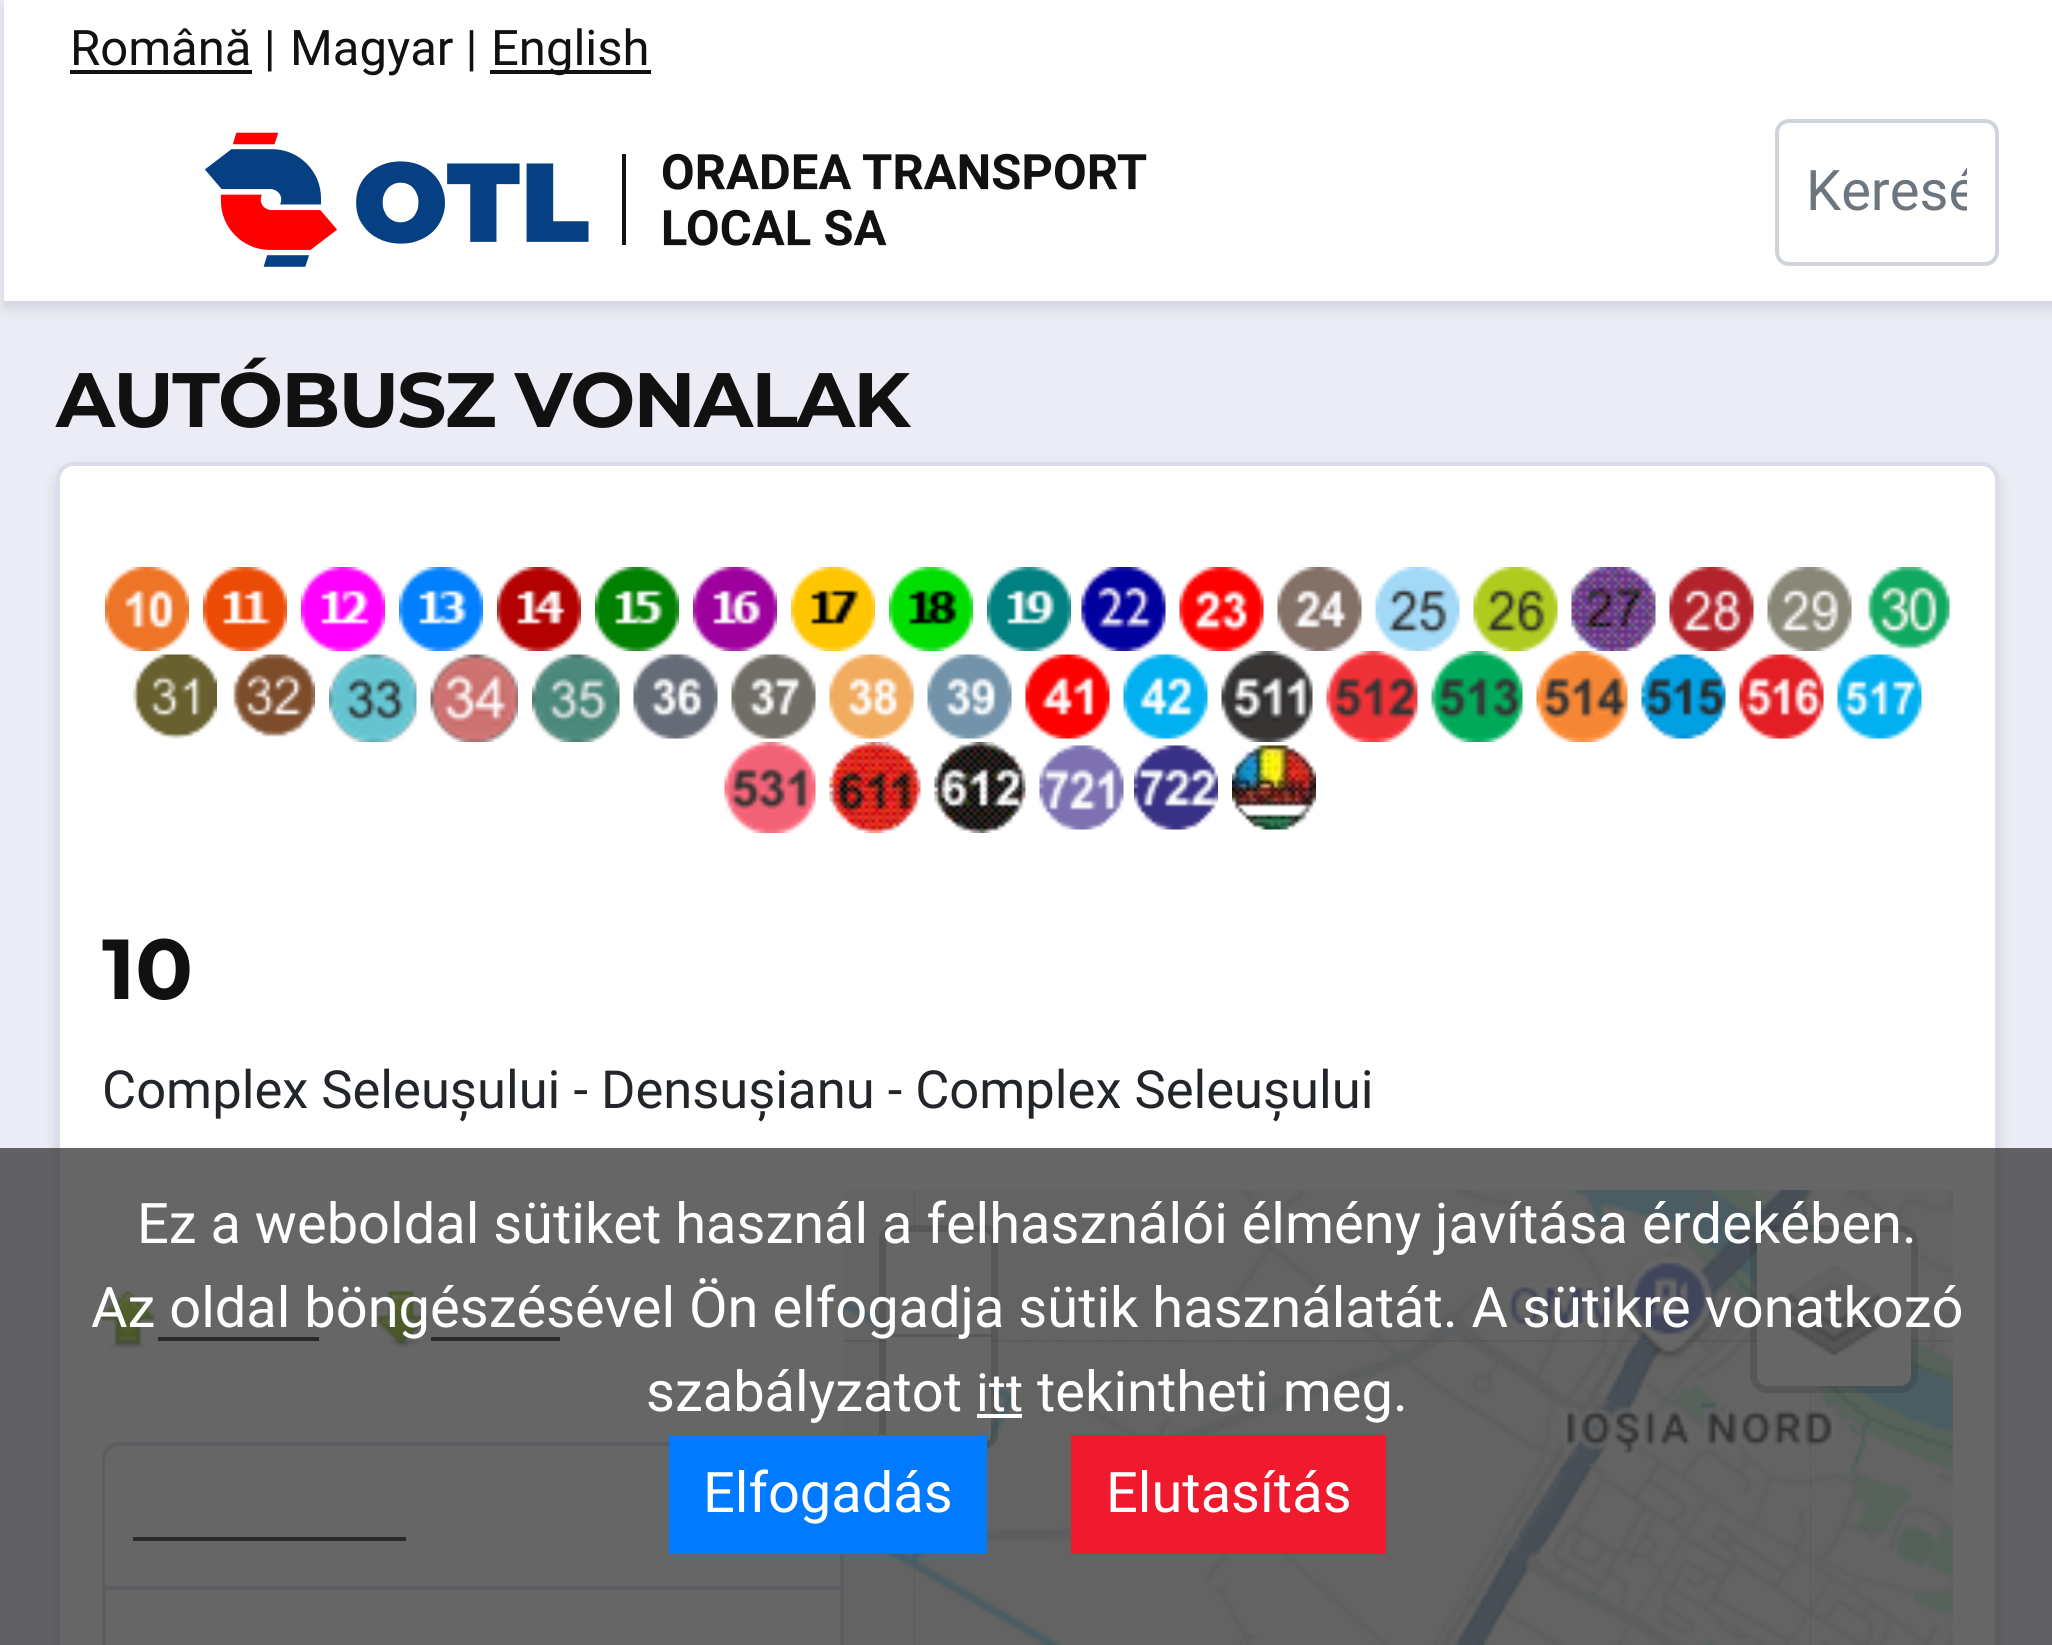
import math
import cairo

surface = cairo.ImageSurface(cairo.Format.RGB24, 2052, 1645)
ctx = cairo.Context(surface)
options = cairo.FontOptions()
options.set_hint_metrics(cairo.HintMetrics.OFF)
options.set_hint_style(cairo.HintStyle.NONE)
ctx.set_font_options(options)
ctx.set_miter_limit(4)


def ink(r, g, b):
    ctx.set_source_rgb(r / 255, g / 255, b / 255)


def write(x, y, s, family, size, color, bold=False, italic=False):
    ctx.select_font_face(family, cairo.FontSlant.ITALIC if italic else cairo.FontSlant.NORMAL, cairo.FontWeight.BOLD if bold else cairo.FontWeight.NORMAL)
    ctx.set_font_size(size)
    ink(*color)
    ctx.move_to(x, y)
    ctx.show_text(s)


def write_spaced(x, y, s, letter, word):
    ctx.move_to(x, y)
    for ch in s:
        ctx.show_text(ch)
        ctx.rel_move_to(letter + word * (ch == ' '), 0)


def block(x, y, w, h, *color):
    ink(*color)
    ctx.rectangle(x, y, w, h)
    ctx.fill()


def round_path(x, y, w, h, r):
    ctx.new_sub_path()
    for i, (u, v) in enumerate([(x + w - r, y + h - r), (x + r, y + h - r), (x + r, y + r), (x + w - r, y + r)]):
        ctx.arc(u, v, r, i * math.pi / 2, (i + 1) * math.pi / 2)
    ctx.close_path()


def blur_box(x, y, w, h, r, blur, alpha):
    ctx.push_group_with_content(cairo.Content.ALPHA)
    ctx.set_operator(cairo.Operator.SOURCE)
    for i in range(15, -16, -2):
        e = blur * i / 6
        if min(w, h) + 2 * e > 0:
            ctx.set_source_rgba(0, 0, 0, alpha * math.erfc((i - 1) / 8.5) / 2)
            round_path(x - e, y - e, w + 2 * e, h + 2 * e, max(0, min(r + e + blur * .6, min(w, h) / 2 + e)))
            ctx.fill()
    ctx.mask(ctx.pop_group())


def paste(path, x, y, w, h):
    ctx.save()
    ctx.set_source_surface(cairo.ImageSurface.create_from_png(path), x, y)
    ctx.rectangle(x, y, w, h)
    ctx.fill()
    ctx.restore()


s1 = dict(family="Roboto", size=49, color=(17, 17, 17))
s2 = dict(family="Roboto", size=56, color=(109, 117, 126))
s3 = dict(family="Montserrat", size=85, color=(17, 17, 17), bold=True)
s4 = dict(family="Roboto", size=52.5, color=(34, 38, 42))
s5 = dict(family="Roboto", size=56, color=(255, 255, 255))
s6 = dict(family="Roboto", size=52.5, color=(255, 255, 255))

ink(235, 236, 245)
ctx.paint()
ctx.save()
ctx.set_fill_rule(cairo.FillRule.EVEN_ODD)
ctx.new_path()
ctx.move_to(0, 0)
ctx.line_to(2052, 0)
ctx.line_to(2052, 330)
ctx.line_to(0, 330)
ctx.close_path()
ctx.move_to(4, 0)
ctx.line_to(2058, 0)
ctx.line_to(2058, 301)
ctx.line_to(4, 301)
ctx.close_path()
ctx.clip()
ink(57, 56, 68)
blur_box(4, 7, 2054, 301, 0, 7, 0.15)
ctx.restore()
block(4, 0, 2048, 301, 255, 255, 255)
block(70, 70, 182, 4, 17, 17, 17)
write(70, 65, "Română |", **s1)
write(290, 65, "Magyar |", **s1)
block(490, 70, 161, 4, 17, 17, 17)
write(491, 65, "English", **s1)
paste("pic1.png", 204, 132, 943, 135)
round_path(1777, 121, 220, 143, 12)
ink(206, 212, 218)
ctx.set_line_width(4)
ctx.stroke()
ctx.save()
ctx.rectangle(1806, 158, 161, 66)
ctx.clip()
write(1806, 210, "Keresé", **s2)
ctx.restore()
ctx.select_font_face("Montserrat", cairo.FontSlant.NORMAL, cairo.FontWeight.BOLD)
ctx.set_font_size(77)
ink(17, 17, 17)
write_spaced(56, 427, "AUTÓBUSZ VONALAK", -1.75, 0)
ink(57, 56, 68)
blur_box(56, 469, 1943, 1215, 18, 7, 0.15)
ink(255, 255, 255)
round_path(58, 464, 1939, 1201, 16)
ctx.fill_preserve()
ink(219, 221, 236)
ctx.stroke()
paste("pic2.png", 105, 567, 84, 84)
paste("pic3.png", 203, 567, 84, 84)
paste("pic4.png", 301, 567, 84, 84)
paste("pic5.png", 399, 567, 84, 84)
paste("pic6.png", 497, 567, 84, 84)
paste("pic7.png", 595, 567, 84, 84)
paste("pic8.png", 693, 567, 84, 84)
paste("pic9.png", 791, 567, 84, 84)
paste("pic10.png", 889, 567, 84, 84)
paste("pic11.png", 987, 567, 84, 84)
paste("pic12.png", 1081, 567, 85, 84)
paste("pic13.png", 1179, 567, 85, 84)
paste("pic14.png", 1277, 567, 85, 84)
paste("pic15.png", 1375, 567, 85, 84)
paste("pic16.png", 1473, 567, 85, 84)
paste("pic17.png", 1571, 567, 85, 84)
paste("pic18.png", 1669, 567, 85, 84)
paste("pic19.png", 1767, 567, 85, 84)
paste("pic20.png", 1867, 567, 83, 82)
paste("pic21.png", 133, 654, 84, 85)
paste("pic22.png", 233, 654, 82, 83)
paste("pic23.png", 329, 654, 88, 88)
paste("pic24.png", 430, 654, 88, 88)
paste("pic25.png", 532, 654, 88, 88)
paste("pic26.png", 633, 654, 85, 85)
paste("pic27.png", 731, 654, 85, 85)
paste("pic28.png", 829, 654, 85, 85)
paste("pic29.png", 927, 654, 85, 85)
paste("pic30.png", 1025, 654, 85, 85)
paste("pic31.png", 1123, 654, 85, 85)
paste("pic32.png", 1221, 651, 92, 91)
paste("pic33.png", 1326, 651, 92, 91)
paste("pic34.png", 1431, 651, 92, 91)
paste("pic35.png", 1536, 651, 92, 91)
paste("pic36.png", 1641, 654, 85, 85)
paste("pic37.png", 1739, 654, 85, 85)
paste("pic38.png", 1837, 654, 85, 85)
paste("pic39.png", 724, 742, 92, 91)
paste("pic40.png", 829, 742, 92, 91)
paste("pic41.png", 934, 742, 92, 91)
paste("pic42.png", 1039, 745, 85, 85)
paste("pic43.png", 1134, 745, 84, 85)
paste("pic44.png", 1232, 745, 84, 85)
write(102, 999, "10", **s3)
write(102, 1108, "Complex Seleușului - Densușianu - Complex Seleușului", **s4)
paste("pic45.png", 101, 1291, 55, 57)
block(158, 1337, 161, 4, 17, 17, 17)
paste("pic46.png", 376, 1291, 53, 57)
block(431, 1337, 129, 4, 17, 17, 17)
ink(219, 221, 236)
ctx.set_fill_rule(cairo.FillRule.EVEN_ODD)
ctx.new_path()
ctx.move_to(119, 1442)
ctx.line_to(826, 1442)
ctx.curve_to(836, 1442, 844, 1450, 844, 1460)
ctx.line_to(844, 1586)
ctx.line_to(102, 1586)
ctx.line_to(102, 1460)
ctx.curve_to(102, 1450, 109, 1442, 119, 1442)
ctx.close_path()
ctx.move_to(119, 1446)
ctx.line_to(826, 1446)
ctx.curve_to(834, 1446, 840, 1452, 840, 1460)
ctx.line_to(840, 1586)
ctx.line_to(105, 1586)
ctx.line_to(105, 1460)
ctx.curve_to(105, 1452, 111, 1446, 119, 1446)
ctx.close_path()
ctx.fill()
block(133, 1537, 273, 4, 17, 17, 17)
block(102, 1586, 742, 4, 219, 221, 236)
block(840, 1586, 4, 59, 219, 221, 236)
block(102, 1586, 4, 59, 219, 221, 236)
paste("pic47.png", 914, 1190, 1, 42)
paste("pic48.png", 1810, 1190, 1, 42)
paste("pic49.png", 844, 1340, 42, 2)
paste("pic50.png", 914, 1340, 843, 305)
paste("pic51.png", 1810, 1340, 143, 305)
paste("pic52.png", 844, 1190, 70, 150)
paste("pic53.png", 914, 1190, 896, 150)
paste("pic54.png", 1808, 1190, 145, 150)
paste("pic55.png", 844, 1340, 70, 305)
paste("pic56.png", 912, 1340, 898, 305)
paste("pic57.png", 1808, 1340, 145, 305)
round_path(882.5, 1228.5, 112, 217, 10.5)
ctx.set_source_rgba(0, 0, 0, 0.2)
ctx.set_line_width(7)
ctx.stroke()
ink(255, 255, 255)
ctx.new_path()
ctx.move_to(893, 1232)
ctx.line_to(984, 1232)
ctx.curve_to(988, 1232, 991, 1235, 991, 1239)
ctx.line_to(991, 1337)
ctx.line_to(886, 1337)
ctx.line_to(886, 1239)
ctx.curve_to(886, 1235, 889, 1232, 893, 1232)
ctx.close_path()
ctx.fill()
block(886, 1334, 105, 3, 204, 204, 204)
ink(255, 255, 255)
ctx.new_path()
ctx.move_to(886, 1337)
ctx.line_to(991, 1337)
ctx.line_to(991, 1435)
ctx.curve_to(991, 1439, 988, 1442, 984, 1442)
ctx.line_to(893, 1442)
ctx.curve_to(889, 1442, 886, 1439, 886, 1435)
ctx.close_path()
ctx.fill()
round_path(1757, 1232, 154, 154, 11)
ctx.fill()
round_path(1753.5, 1228.5, 161, 161, 14.5)
ctx.set_source_rgba(0, 0, 0, 0.2)
ctx.stroke()
paste("pic58.png", 1788, 1266, 92, 89)
ctx.set_source_rgba(0.2, 0.2, 0.2, 0.75)
ctx.rectangle(0, 1148, 2052, 497)
ctx.fill()
write(137, 1243, "Ez a weboldal sütiket használ a felhasználói élmény javítása érdekében.", **s5)
write(91, 1327, "Az oldal böngészésével Ön elfogadja sütik használatát. A sütikre vonatkozó", **s5)
write(646, 1411, "szabályzatot", **s5)
write(976, 1411, "itt", **s6)
block(977, 1414, 45, 4, 255, 255, 255)
write(1037, 1411, "tekintheti meg.", **s5)
block(669, 1435, 318, 119, 0, 123, 255)
write(703, 1512, "Elfogadás", **s5)
block(1071, 1435, 315, 119, 239, 26, 45)
write(1106, 1512, "Elutasítás", **s5)
surface.write_to_png("screenshot.png")
